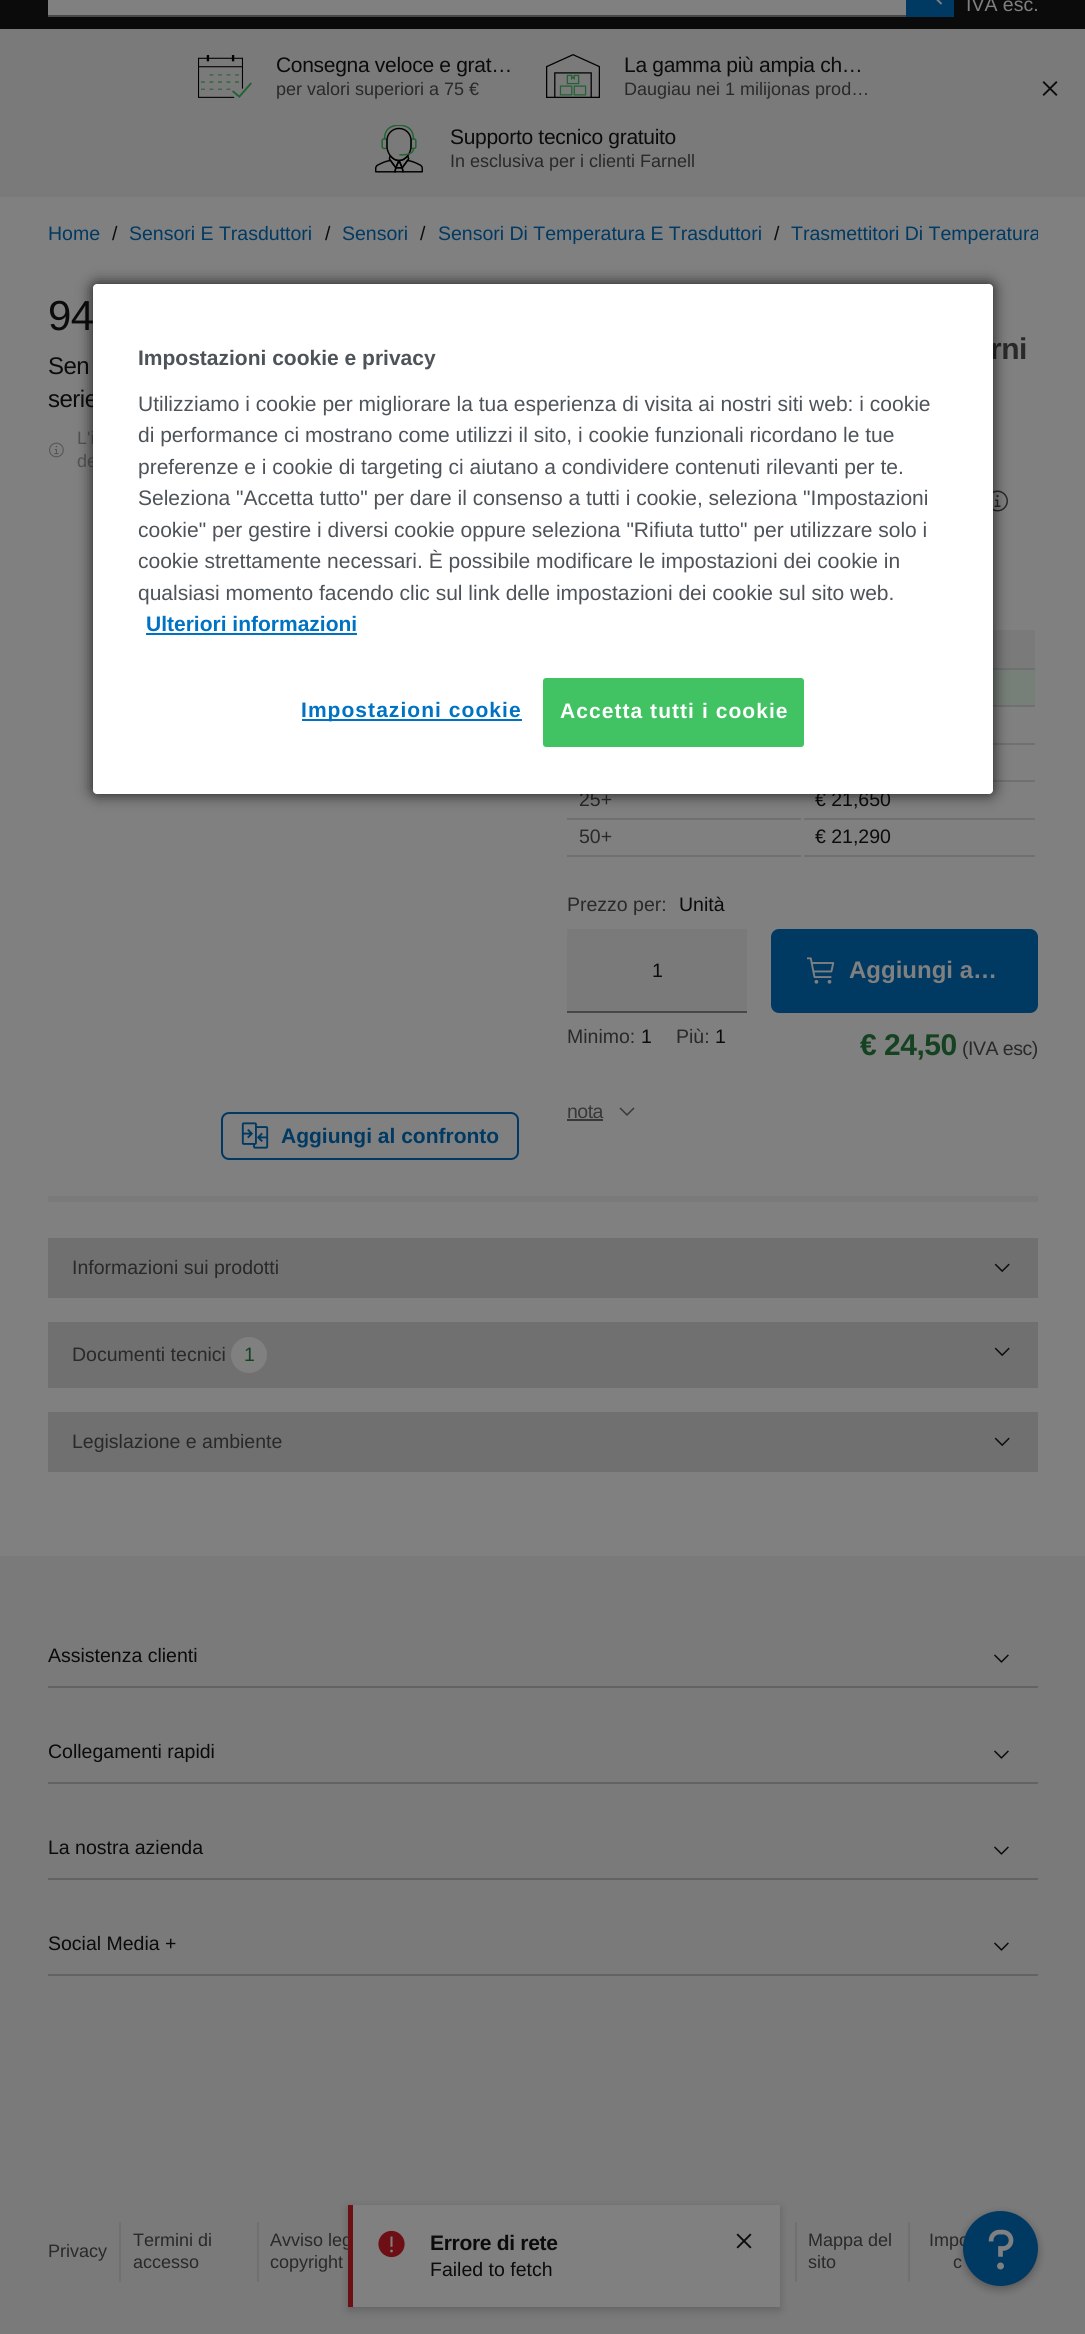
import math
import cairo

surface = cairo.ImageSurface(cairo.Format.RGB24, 1085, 2334)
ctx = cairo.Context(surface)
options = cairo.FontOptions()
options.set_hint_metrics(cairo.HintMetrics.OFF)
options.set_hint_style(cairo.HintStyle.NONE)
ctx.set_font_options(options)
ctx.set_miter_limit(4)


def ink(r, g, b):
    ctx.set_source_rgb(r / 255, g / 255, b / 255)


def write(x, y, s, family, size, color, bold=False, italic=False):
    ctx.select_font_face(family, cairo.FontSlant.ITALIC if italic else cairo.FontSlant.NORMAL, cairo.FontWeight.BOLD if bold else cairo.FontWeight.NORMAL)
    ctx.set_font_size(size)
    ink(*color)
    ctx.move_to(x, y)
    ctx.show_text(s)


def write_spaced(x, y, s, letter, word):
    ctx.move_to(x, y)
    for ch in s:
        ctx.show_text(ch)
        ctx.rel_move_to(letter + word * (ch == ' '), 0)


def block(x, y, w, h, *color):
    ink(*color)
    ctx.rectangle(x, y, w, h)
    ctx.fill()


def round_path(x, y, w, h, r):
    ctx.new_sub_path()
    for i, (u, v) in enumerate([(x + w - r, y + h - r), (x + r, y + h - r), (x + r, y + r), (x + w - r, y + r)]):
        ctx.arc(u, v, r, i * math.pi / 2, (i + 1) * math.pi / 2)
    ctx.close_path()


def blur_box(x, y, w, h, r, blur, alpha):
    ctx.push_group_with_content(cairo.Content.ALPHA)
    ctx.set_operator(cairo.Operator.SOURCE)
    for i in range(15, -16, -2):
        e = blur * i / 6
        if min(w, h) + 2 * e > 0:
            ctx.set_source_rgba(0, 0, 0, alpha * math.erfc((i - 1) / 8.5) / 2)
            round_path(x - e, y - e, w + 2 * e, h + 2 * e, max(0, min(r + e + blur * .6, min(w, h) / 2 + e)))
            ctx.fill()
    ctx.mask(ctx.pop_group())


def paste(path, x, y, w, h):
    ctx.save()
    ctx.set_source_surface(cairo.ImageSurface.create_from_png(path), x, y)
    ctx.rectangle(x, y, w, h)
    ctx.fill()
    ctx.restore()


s1 = dict(family="Liberation Sans", size=19.5, color=(128, 128, 128))
s2 = dict(family="Liberation Sans", size=18, color=(41, 41, 41))
s3 = dict(family="Liberation Sans", size=19.5, color=(0, 57, 98))
s4 = dict(family="Liberation Sans", size=19.5, color=(11, 11, 11))
s5 = dict(family="Liberation Sans", size=18, color=(84, 84, 84))
s6 = dict(family="Liberation Sans", size=21, color=(0, 57, 98), bold=True)
s7 = dict(family="Liberation Sans", size=19.5, color=(41, 41, 41))
s8 = dict(family="Liberation Sans", size=24, color=(128, 128, 128), bold=True)
s9 = dict(family="Liberation Sans", size=19.5, color=(21, 66, 33))
s10 = dict(family="Liberation Sans", size=21, color=(77, 83, 88), bold=True)
s11 = dict(family="Liberation Sans", size=21, color=(77, 83, 88))
s12 = dict(family="Liberation Sans", size=21, color=(0, 114, 195), bold=True)

ink(128, 128, 128)
ctx.paint()
block(0, 0, 1085, 29, 11, 11, 11)
block(48, 0, 858, 15, 128, 128, 128)
block(48, 15, 858, 2, 71, 71, 71)
block(906, 0, 48, 17, 0, 57, 98)
paste("pic1.png", 936, 0, 7, 5)
write(966, 11, "IVA esc.", **s1)
block(0, 29, 1085, 168, 122, 122, 122)
paste("pic2.png", 198, 55, 54, 43)
ctx.set_font_size(21)
ink(11, 11, 11)
write_spaced(276, 72, "Consegna veloce e grat…", -0.3, 0)
write(276, 95, "per valori superiori a 75 €", **s2)
paste("pic3.png", 546, 54, 54, 44)
ctx.set_font_size(21)
ink(11, 11, 11)
write_spaced(624, 72, "La gamma più ampia ch…", -0.3, 0)
write(624, 95, "Daugiau nei 1 milijonas prod…", **s2)
paste("pic4.png", 375, 125, 48, 48)
ctx.set_font_size(21)
ink(11, 11, 11)
write_spaced(450, 144, "Supporto tecnico gratuito", -0.3, 0)
write(450, 167, "In esclusiva per i clienti Farnell", **s2)
paste("pic5.png", 1042, 81, 16, 15)
write(48, 240, "Home", **s3)
write(112, 240, "/", **s4)
write(129, 240, "Sensori E Trasduttori", **s3)
write(325, 240, "/", **s4)
write(342, 240, "Sensori", **s3)
write(420, 240, "/", **s4)
write(438, 240, "Sensori Di Temperatura E Trasduttori", **s3)
write(774, 240, "/", **s4)
ctx.save()
ctx.rectangle(48, 221, 990, 45)
ctx.clip()
write(791, 240, "Trasmettitori Di Temperatura", **s3)
ctx.restore()
ctx.set_font_size(42)
write_spaced(48, 330, "94", -0.5, 0)
ctx.set_font_size(24)
write_spaced(48, 374, "Sen", -0.5, 0)
write_spaced(48, 407, "serie", -0.5, 0)
paste("pic6.png", 49, 442, 15, 16)
write(77, 444, "L'i", **s5)
write(77, 467, "de", **s5)
round_path(222, 1113, 296, 46, 7)
ink(0, 57, 98)
ctx.stroke()
paste("pic7.png", 241, 1122, 28, 27)
write(281, 1143, "Aggiungi al confronto", **s6)
ctx.set_font_size(30)
ink(41, 41, 41)
write_spaced(990, 359, "rni", -0.5, 0)
paste("pic8.png", 993, 490, 15, 22)
block(993, 632, 42, 36, 122, 122, 122)
block(993, 630, 45, 2, 122, 122, 122)
block(993, 668, 45, 2, 112, 112, 112)
block(1035, 630, 3, 2, 128, 128, 128)
block(993, 670, 42, 35, 119, 127, 121)
block(993, 705, 45, 2, 112, 112, 112)
block(1035, 668, 3, 2, 128, 128, 128)
block(993, 743, 45, 2, 112, 112, 112)
block(1035, 705, 3, 2, 128, 128, 128)
block(993, 780, 45, 2, 112, 112, 112)
block(1035, 743, 3, 2, 128, 128, 128)
write(579, 806, "25+", **s7)
block(567, 818, 471, 2, 112, 112, 112)
block(1035, 780, 3, 2, 128, 128, 128)
write(815, 806, "€ 21,650", **s4)
block(567, 855, 471, 2, 112, 112, 112)
block(801, 818, 3, 40, 128, 128, 128)
write(579, 843, "50+", **s7)
block(1035, 818, 3, 40, 128, 128, 128)
write(815, 843, "€ 21,290", **s4)
write(567, 911, "Prezzo per:", **s7)
write(679, 911, "Unità", **s4)
block(567, 929, 180, 82, 122, 122, 122)
block(567, 1011, 180, 2, 71, 71, 71)
write(652, 977, "1", **s4)
ink(0, 57, 98)
round_path(771, 929, 267, 84, 8)
ctx.fill()
paste("pic9.png", 807, 957, 28, 27)
write(849, 978, "Aggiungi a…", **s8)
write(567, 1043, "Minimo:", **s7)
write(641, 1043, "1", **s4)
write(676, 1043, "Più:", **s7)
write(715, 1043, "1", **s4)
ctx.select_font_face("Liberation Sans", cairo.FontSlant.NORMAL, cairo.FontWeight.BOLD)
ctx.set_font_size(30)
ink(21, 66, 33)
write_spaced(860, 1055, "€ 24,50", -0.5, 0)
ctx.select_font_face("Liberation Sans")
ctx.set_font_size(19.5)
ink(41, 41, 41)
write_spaced(962, 1055, "(IVA esc)", -0.5, 0)
ink(56, 56, 56)
write_spaced(567, 1118, "nota", -0.5, 0)
block(567, 1119, 36, 2, 56, 56, 56)
paste("pic10.png", 619, 1107, 16, 9)
block(48, 1196, 990, 6, 122, 122, 122)
block(48, 1238, 990, 60, 112, 112, 112)
write(72, 1274, "Informazioni sui prodotti", **s7)
paste("pic11.png", 994, 1263, 16, 10)
block(48, 1322, 990, 66, 112, 112, 112)
write(72, 1361, "Documenti tecnici", **s7)
ink(128, 128, 128)
ctx.new_path()
ctx.arc(249, 1355, 18, 0, 2 * math.pi)
ctx.fill()
write(244, 1361, "1", **s9)
paste("pic11.png", 994, 1347, 16, 10)
block(48, 1412, 990, 60, 112, 112, 112)
write(72, 1448, "Legislazione e ambiente", **s7)
paste("pic11.png", 994, 1437, 16, 10)
block(0, 1556, 1085, 778, 122, 122, 122)
ink(0, 0, 0)
blur_box(348, 2208, 432, 102, 0, 4.5, 0.2)
block(353, 2205, 427, 102, 128, 128, 128)
write(270, 2246, "Avviso leg", **s2)
block(348, 2205, 5, 102, 109, 15, 20)
paste("pic12.png", 378, 2230, 27, 28)
ctx.select_font_face("Liberation Sans", cairo.FontSlant.NORMAL, cairo.FontWeight.BOLD)
ctx.set_font_size(21)
ink(11, 11, 11)
write_spaced(430, 2250, "Errore di rete", -0.3, 0)
write(430, 2276, "Failed to fetch", **s4)
paste("pic13.png", 736, 2233, 16, 16)
block(48, 1686, 990, 2, 99, 99, 99)
write(48, 1662, "Assistenza clienti", **s4)
paste("pic14.png", 994, 1654, 15, 9)
block(48, 1782, 990, 2, 99, 99, 99)
write(48, 1758, "Collegamenti rapidi", **s4)
paste("pic14.png", 994, 1750, 15, 9)
block(48, 1878, 990, 2, 99, 99, 99)
write(48, 1854, "La nostra azienda", **s4)
paste("pic14.png", 994, 1846, 15, 9)
block(48, 1974, 990, 2, 99, 99, 99)
write(48, 1950, "Social Media +", **s4)
paste("pic14.png", 994, 1942, 15, 9)
block(119, 2222, 2, 60, 112, 112, 112)
write(48, 2257, "Privacy", **s2)
block(257, 2222, 2, 60, 112, 112, 112)
write(133, 2246, "Termini di", **s2)
write(133, 2268, "accesso", **s2)
write(270, 2268, "copyright", **s2)
block(795, 2222, 2, 60, 112, 112, 112)
block(908, 2222, 2, 60, 112, 112, 112)
write(808, 2246, "Mappa del", **s2)
write(808, 2268, "sito", **s2)
write(929, 2246, "Impo", **s2)
write(953, 2268, "c", **s2)
ink(0, 0, 0)
blur_box(963, 2214, 75, 75, 37.5, 4.5, 0.3)
ink(0, 57, 98)
ctx.arc(1000.5, 2248.5, 37.5, 0, 2 * math.pi)
ctx.fill()
paste("pic15.png", 988, 2229, 26, 41)
ink(0, 0, 0)
blur_box(93, 284, 900, 510, 4, 7.5, 0.8)
ink(255, 255, 255)
round_path(93, 284, 900, 510, 4)
ctx.fill()
write(138, 365, "Impostazioni cookie e privacy", **s10)
write(138, 411, "Utilizziamo i cookie per migliorare la tua esperienza di visita ai nostri siti web: i cookie", **s11)
write(138, 442, "di performance ci mostrano come utilizzi il sito, i cookie funzionali ricordano le tue", **s11)
write(138, 474, "preferenze e i cookie di targeting ci aiutano a condividere contenuti rilevanti per te.", **s11)
write(138, 505, "Seleziona \"Accetta tutto\" per dare il consenso a tutti i cookie, seleziona \"Impostazioni", **s11)
write(138, 537, "cookie\" per gestire i diversi cookie oppure seleziona \"Rifiuta tutto\" per utilizzare solo i", **s11)
write(138, 568, "cookie strettamente necessari. È possibile modificare le impostazioni dei cookie in", **s11)
write(138, 600, "qualsiasi momento facendo clic sul link delle impostazioni dei cookie sul sito web.", **s11)
write(146, 631, "Ulteriori informazioni", **s12)
block(146, 633, 211, 2, 0, 114, 195)
block(302, 719, 220, 2, 0, 114, 195)
write_spaced(301, 717, "Impostazioni cookie", 1.05, 0)
ink(65, 195, 99)
round_path(544, 679, 259, 67, 2)
ctx.fill_preserve()
ctx.stroke()
ink(255, 255, 255)
write_spaced(560, 718, "Accetta tutti i cookie", 1.05, 0)
surface.write_to_png("screenshot.png")
